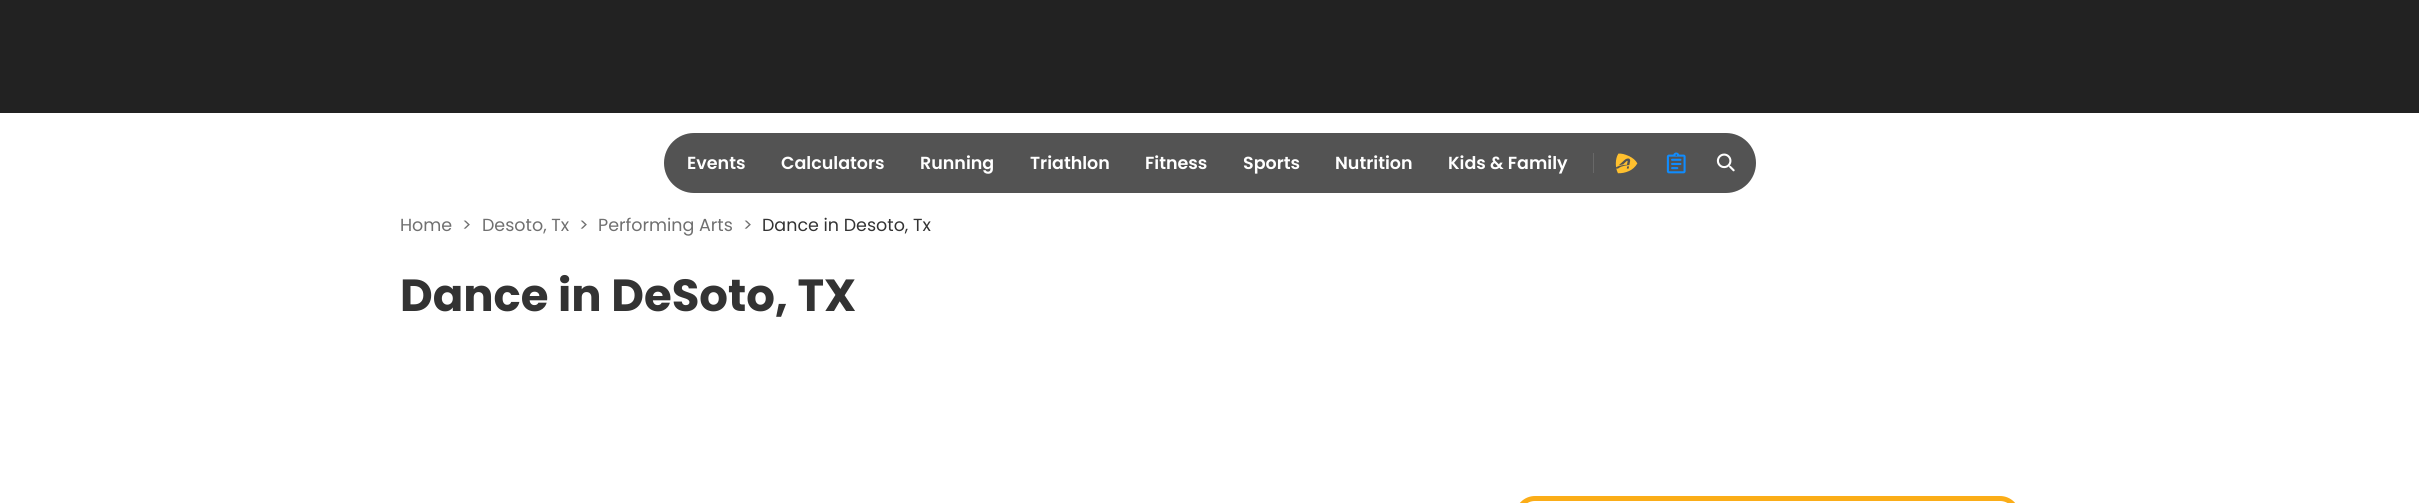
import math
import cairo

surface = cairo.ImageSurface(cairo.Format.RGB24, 2419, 503)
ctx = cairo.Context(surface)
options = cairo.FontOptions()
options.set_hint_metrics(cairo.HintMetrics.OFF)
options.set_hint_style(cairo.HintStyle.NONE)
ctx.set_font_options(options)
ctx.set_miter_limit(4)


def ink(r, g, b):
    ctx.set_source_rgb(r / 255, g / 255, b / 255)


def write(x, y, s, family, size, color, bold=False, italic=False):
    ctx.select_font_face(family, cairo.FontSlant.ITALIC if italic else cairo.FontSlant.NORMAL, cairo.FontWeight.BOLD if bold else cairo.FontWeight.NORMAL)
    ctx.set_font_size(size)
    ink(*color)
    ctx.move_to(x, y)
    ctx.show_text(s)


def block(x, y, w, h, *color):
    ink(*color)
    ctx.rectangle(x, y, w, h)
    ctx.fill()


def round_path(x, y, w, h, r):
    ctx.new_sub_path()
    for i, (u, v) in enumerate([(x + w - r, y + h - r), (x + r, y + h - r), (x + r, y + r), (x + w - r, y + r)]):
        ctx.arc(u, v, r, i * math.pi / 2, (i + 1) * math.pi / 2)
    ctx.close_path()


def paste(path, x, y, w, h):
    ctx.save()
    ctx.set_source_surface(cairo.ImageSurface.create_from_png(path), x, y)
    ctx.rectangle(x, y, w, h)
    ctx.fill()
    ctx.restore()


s1 = dict(family="Poppins SemiBold", size=17.5, color=(255, 255, 255))
s2 = dict(family="Poppins", size=17.5, color=(112, 112, 112))
s3 = dict(family="Poppins", size=17.5, color=(51, 51, 51))
s4 = dict(family="Poppins", size=45, color=(51, 51, 51), bold=True)

ink(255, 255, 255)
ctx.paint()
block(0, 0, 2419, 113, 34, 34, 34)
ink(83, 83, 83)
round_path(664, 133, 1092, 60, 30)
ctx.fill()
write(687, 169, "Events", **s1)
write(781, 169, "Calculators", **s1)
write(920, 169, "Running", **s1)
write(1030, 169, "Triathlon", **s1)
write(1145, 169, "Fitness", **s1)
write(1243, 169, "Sports", **s1)
write(1335, 169, "Nutrition", **s1)
write(1448, 169, "Kids & Family", **s1)
block(1593, 153, 1, 20, 104, 104, 104)
paste("pic1.png", 1615, 153, 23, 21)
paste("pic2.png", 1666, 152, 20, 22)
paste("pic3.png", 1716, 153, 19, 19)
write(400, 231, "Home", **s2)
write(462, 231, ">", **s2)
write(482, 231, "Desoto, Tx", **s2)
write(579, 231, ">", **s2)
write(598, 231, "Performing Arts", **s2)
write(743, 231, ">", **s2)
write(762, 231, "Dance in Desoto, Tx", **s3)
write(400, 311, "Dance in DeSoto, TX", **s4)
round_path(1517.5, 498.5, 500, 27, 17.5)
ink(251, 173, 24)
ctx.set_line_width(5)
ctx.stroke()
surface.write_to_png("screenshot.png")
